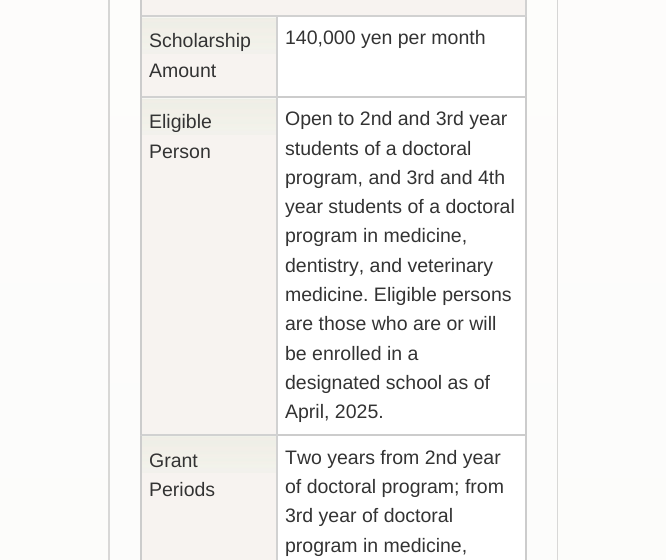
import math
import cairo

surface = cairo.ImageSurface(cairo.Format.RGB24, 666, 560)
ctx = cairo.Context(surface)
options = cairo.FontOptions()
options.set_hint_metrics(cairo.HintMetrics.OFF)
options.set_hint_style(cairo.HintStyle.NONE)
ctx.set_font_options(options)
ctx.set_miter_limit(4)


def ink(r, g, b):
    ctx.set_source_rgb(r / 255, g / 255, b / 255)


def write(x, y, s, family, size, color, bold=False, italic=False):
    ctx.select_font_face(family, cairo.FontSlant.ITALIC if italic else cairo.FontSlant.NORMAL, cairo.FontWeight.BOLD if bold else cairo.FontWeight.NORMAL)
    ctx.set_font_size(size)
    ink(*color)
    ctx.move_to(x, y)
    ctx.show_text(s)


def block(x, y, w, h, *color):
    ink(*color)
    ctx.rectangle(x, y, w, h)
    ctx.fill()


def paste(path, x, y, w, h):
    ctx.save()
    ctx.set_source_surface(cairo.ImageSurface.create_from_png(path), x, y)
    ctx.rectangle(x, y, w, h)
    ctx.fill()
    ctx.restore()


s1 = dict(family="Liberation Sans", size=19.5, color=(51, 51, 51))

ink(255, 255, 255)
ctx.paint()
gradient = cairo.LinearGradient(0, -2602, 0, 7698)
gradient.add_color_stop_rgba(0, 1, 1, 1, 1)
gradient.add_color_stop_rgba(1, 0.965, 0.961, 0.941, 1)
ctx.set_source(gradient)
ctx.rectangle(0, 0, 666, 560)
ctx.fill()
gradient = cairo.LinearGradient(108, -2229, 108, 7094)
gradient.add_color_stop_rgba(0, 0.8, 0.8, 0.8, 1)
gradient.add_color_stop_rgba(1, 0.965, 0.961, 0.941, 1)
ctx.set_source(gradient)
ctx.rectangle(108, 0, 450, 560)
ctx.fill()
gradient = cairo.LinearGradient(110, -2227, 110, 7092)
gradient.add_color_stop_rgba(0, 1, 1, 1, 1)
gradient.add_color_stop_rgba(1, 0.965, 0.961, 0.941, 1)
ctx.set_source(gradient)
ctx.rectangle(110, 0, 447, 560)
ctx.fill()
block(525, 17, 2, 543, 204, 204, 204)
block(142, 0, 383, 15, 247, 243, 240)
block(525, 0, 2, 17, 209, 209, 209)
block(276, 96, 251, 2, 204, 204, 204)
block(276, 434, 251, 2, 204, 204, 204)
block(276, 434, 2, 126, 209, 209, 209)
block(276, 15, 2, 420, 209, 209, 209)
block(140, 434, 2, 126, 204, 204, 204)
block(140, 434, 138, 2, 209, 209, 209)
block(140, 96, 2, 339, 204, 204, 204)
block(140, 96, 138, 2, 209, 209, 209)
block(140, 15, 2, 83, 204, 204, 204)
block(140, 15, 387, 2, 209, 209, 209)
block(140, 0, 2, 17, 204, 204, 204)
block(142, 54, 134, 42, 247, 243, 240)
paste("pic1.png", 142, 17, 134, 37)
write(149, 47, "Scholarship", **s1)
write(149, 77, "Amount", **s1)
block(278, 17, 247, 79, 255, 255, 255)
write(285, 44, "140,000 yen per month", **s1)
block(142, 135, 134, 299, 247, 243, 240)
paste("pic1.png", 142, 98, 134, 37)
write(149, 128, "Eligible", **s1)
write(149, 158, "Person", **s1)
block(278, 98, 247, 336, 255, 255, 255)
write(285, 125, "Open to 2nd and 3rd year", **s1)
write(285, 155, "students of a doctoral", **s1)
write(285, 184, "program, and 3rd and 4th", **s1)
write(285, 213, "year students of a doctoral", **s1)
write(285, 242, "program in medicine,", **s1)
write(285, 272, "dentistry, and veterinary", **s1)
write(285, 301, "medicine. Eligible persons", **s1)
write(285, 330, "are those who are or will", **s1)
write(285, 360, "be enrolled in a", **s1)
write(285, 389, "designated school as of", **s1)
write(285, 418, "April, 2025.", **s1)
block(142, 473, 134, 87, 247, 243, 240)
paste("pic2.png", 142, 436, 134, 37)
write(149, 467, "Grant", **s1)
write(149, 496, "Periods", **s1)
block(278, 436, 247, 124, 255, 255, 255)
write(285, 464, "Two years from 2nd year", **s1)
write(285, 493, "of doctoral program; from", **s1)
write(285, 522, "3rd year of doctoral", **s1)
write(285, 552, "program in medicine,", **s1)
surface.write_to_png("screenshot.png")
